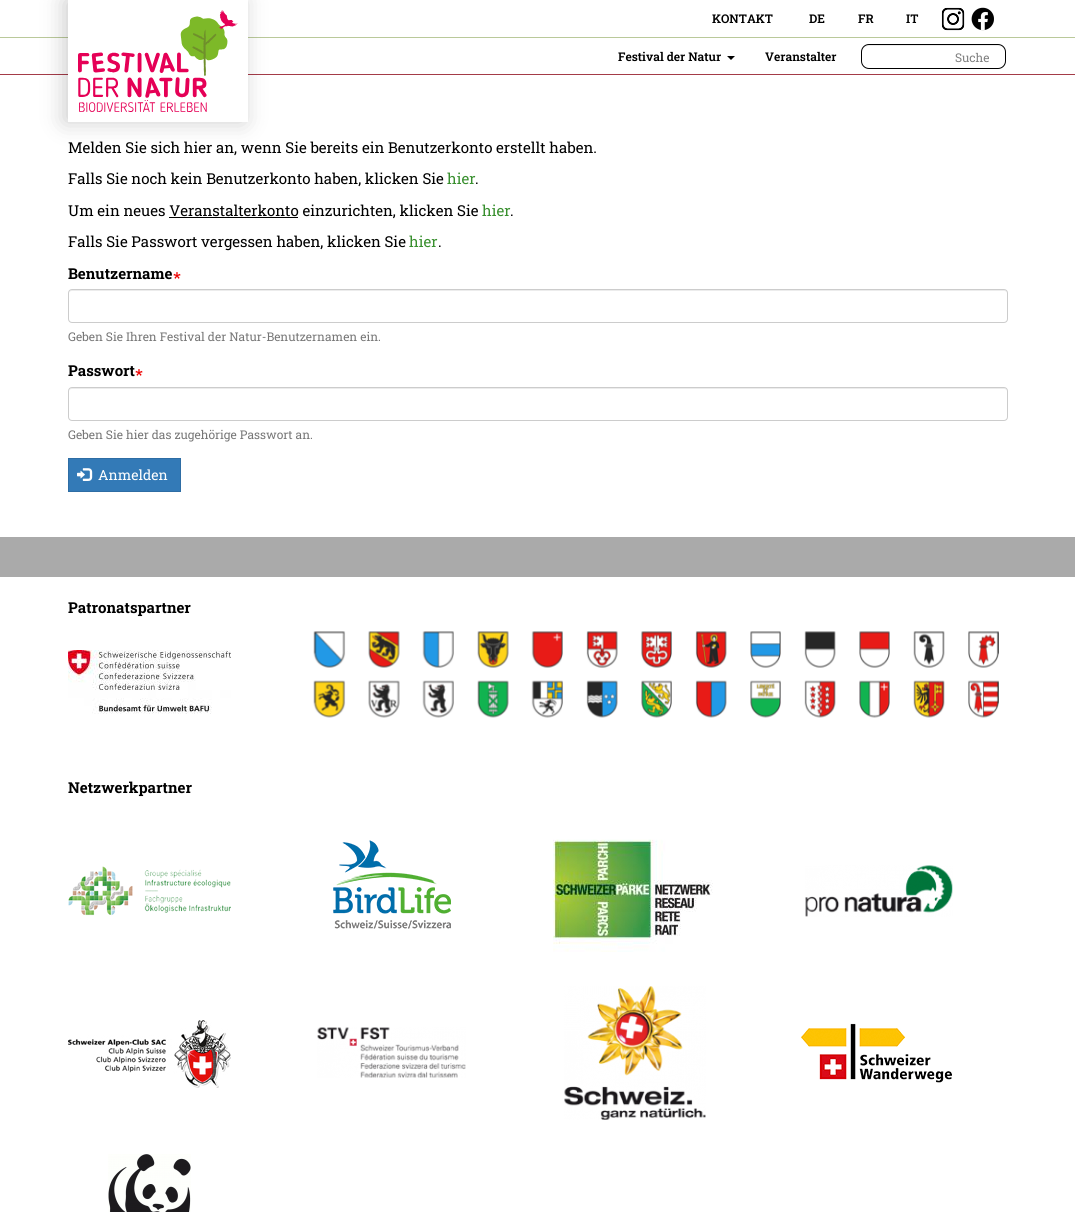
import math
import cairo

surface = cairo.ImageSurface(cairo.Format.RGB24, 1075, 1212)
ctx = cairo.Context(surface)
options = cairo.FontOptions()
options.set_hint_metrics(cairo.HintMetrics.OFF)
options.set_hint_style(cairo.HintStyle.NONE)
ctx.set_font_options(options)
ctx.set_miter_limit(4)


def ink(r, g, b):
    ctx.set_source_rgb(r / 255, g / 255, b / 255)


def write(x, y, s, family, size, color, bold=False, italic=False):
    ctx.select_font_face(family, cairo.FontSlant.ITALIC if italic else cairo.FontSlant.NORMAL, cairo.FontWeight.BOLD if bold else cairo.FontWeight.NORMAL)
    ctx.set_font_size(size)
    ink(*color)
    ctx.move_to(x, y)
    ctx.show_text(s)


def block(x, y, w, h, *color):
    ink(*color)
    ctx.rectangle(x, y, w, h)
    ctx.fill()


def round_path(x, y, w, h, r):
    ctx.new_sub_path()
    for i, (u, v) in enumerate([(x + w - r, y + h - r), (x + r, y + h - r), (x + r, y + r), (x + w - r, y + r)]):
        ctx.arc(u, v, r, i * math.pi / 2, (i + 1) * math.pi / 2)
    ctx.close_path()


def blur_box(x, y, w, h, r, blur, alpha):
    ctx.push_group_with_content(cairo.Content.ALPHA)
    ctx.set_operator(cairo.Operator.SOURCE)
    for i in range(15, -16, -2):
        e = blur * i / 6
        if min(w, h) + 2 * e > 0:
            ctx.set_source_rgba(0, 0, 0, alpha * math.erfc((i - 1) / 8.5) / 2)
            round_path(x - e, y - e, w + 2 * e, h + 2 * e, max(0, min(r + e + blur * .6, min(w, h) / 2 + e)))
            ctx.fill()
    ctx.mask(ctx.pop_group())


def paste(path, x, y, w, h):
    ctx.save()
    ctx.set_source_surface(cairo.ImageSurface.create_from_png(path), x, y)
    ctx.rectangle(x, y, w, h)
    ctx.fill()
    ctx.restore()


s1 = dict(family="Roboto Slab SemiBold", size=12, color=(0, 0, 0))
s2 = dict(family="Roboto Slab", size=12, color=(128, 128, 128))
s3 = dict(family="Roboto Slab", size=15, color=(0, 0, 0))
s4 = dict(family="Roboto Slab", size=15, color=(56, 143, 46))
s5 = dict(family="Roboto Slab", size=15, color=(0, 0, 0), bold=True)
s6 = dict(family="Roboto Slab", size=12, color=(119, 119, 119))
s7 = dict(family="Roboto Slab", size=14, color=(255, 255, 255))

ink(255, 255, 255)
ctx.paint()
block(0, 74, 1075, 1, 164, 59, 72)
block(0, 37, 1075, 1, 186, 201, 154)
ink(0, 0, 0)
blur_box(64, 0, 180, 122, 0, 11.5, 0.2)
block(68, 0, 180, 122, 255, 255, 255)
paste("pic1.png", 78, 10, 160, 102)
write(712, 23, "KONTAKT", **s1)
write(809, 23, "DE", **s1)
write(858, 23, "FR", **s1)
write(906, 23, "IT", **s1)
paste("pic2.png", 941, 7, 24, 24)
paste("pic3.png", 971, 7, 23, 24)
write(618, 61, "Festival der Natur", **s1)
ctx.new_path()
ctx.move_to(727, 56)
ctx.line_to(735, 56)
ctx.line_to(731, 60)
ctx.close_path()
ctx.fill()
write(765, 61, "Veranstalter", **s1)
ink(236, 236, 236)
ctx.new_path()
ctx.move_to(869, 46)
ctx.line_to(998, 46)
ctx.curve_to(1002, 46, 1005, 49, 1005, 53)
ctx.curve_to(1005, 40, 983, 45, 976, 45)
ctx.line_to(890, 45)
ctx.curve_to(884, 45, 862, 40, 862, 53)
ctx.curve_to(862, 49, 865, 46, 869, 46)
ctx.close_path()
ctx.fill()
round_path(861.5, 44.5, 144, 24, 7.5)
ink(0, 0, 0)
ctx.set_line_width(1)
ctx.stroke()
write(955, 62, "Suche", **s2)
write(68, 153, "Melden Sie sich hier an, wenn Sie bereits ein Benutzerkonto erstellt haben.", **s3)
write(68, 184, "Falls Sie noch kein Benutzerkonto haben, klicken Sie", **s3)
write(447, 184, "hier", **s4)
write(475, 184, ".", **s3)
write(68, 216, "Um ein neues Veranstalterkonto einzurichten, klicken Sie", **s3)
write(482, 216, "hier", **s4)
write(510, 216, ".", **s3)
block(169, 217, 129, 1, 0, 0, 0)
write(68, 247, "Falls Sie Passwort vergessen haben, klicken Sie", **s3)
write(409, 247, "hier", **s4)
write(438, 247, ".", **s3)
write(68, 279, "Benutzername", **s5)
paste("pic4.png", 173, 272, 8, 7)
ink(236, 236, 236)
ctx.new_path()
ctx.move_to(72, 291)
ctx.line_to(1004, 291)
ctx.curve_to(1006, 291, 1007, 292, 1007, 294)
ctx.curve_to(1007, 292, 1006, 290, 1004, 290)
ctx.line_to(72, 290)
ctx.curve_to(70, 290, 69, 292, 69, 294)
ctx.curve_to(69, 292, 70, 291, 72, 291)
ctx.close_path()
ctx.fill()
round_path(68.5, 289.5, 939, 33, 3.5)
ink(204, 204, 204)
ctx.stroke()
write(68, 341, "Geben Sie Ihren Festival der Natur-Benutzernamen ein.", **s6)
write(68, 376, "Passwort", **s5)
paste("pic4.png", 135, 369, 8, 7)
ink(236, 236, 236)
ctx.new_path()
ctx.move_to(72, 389)
ctx.line_to(1004, 389)
ctx.curve_to(1006, 389, 1007, 390, 1007, 392)
ctx.curve_to(1007, 390, 1006, 388, 1004, 388)
ctx.line_to(72, 388)
ctx.curve_to(70, 388, 69, 390, 69, 392)
ctx.curve_to(69, 390, 70, 389, 72, 389)
ctx.close_path()
ctx.fill()
round_path(68.5, 387.5, 939, 33, 3.5)
ink(204, 204, 204)
ctx.stroke()
write(68, 439, "Geben Sie hier das zugehörige Passwort an.", **s6)
ink(51, 122, 183)
ctx.rectangle(68.5, 458.5, 112, 33)
ctx.fill_preserve()
ink(46, 109, 164)
ctx.stroke()
paste("pic5.png", 77, 468, 16, 13)
write(98, 480, "Anmelden", **s7)
block(0, 537, 1075, 40, 170, 170, 170)
write(68, 613, "Patronatspartner", **s5)
paste("pic6.png", 68, 650, 163, 64)
paste("pic7.png", 313, 631, 686, 87)
write(68, 793, "Netzwerkpartner", **s5)
paste("pic8.png", 68, 866, 163, 50)
paste("pic9.png", 333, 840, 118, 89)
paste("pic10.png", 553, 839, 160, 113)
paste("pic11.png", 805, 865, 148, 52)
paste("pic12.png", 68, 1020, 163, 68)
paste("pic13.png", 317, 1027, 149, 51)
paste("pic14.png", 564, 986, 142, 134)
paste("pic15.png", 801, 1023, 151, 60)
paste("pic16.png", 108, 1154, 83, 58)
surface.write_to_png("screenshot.png")
